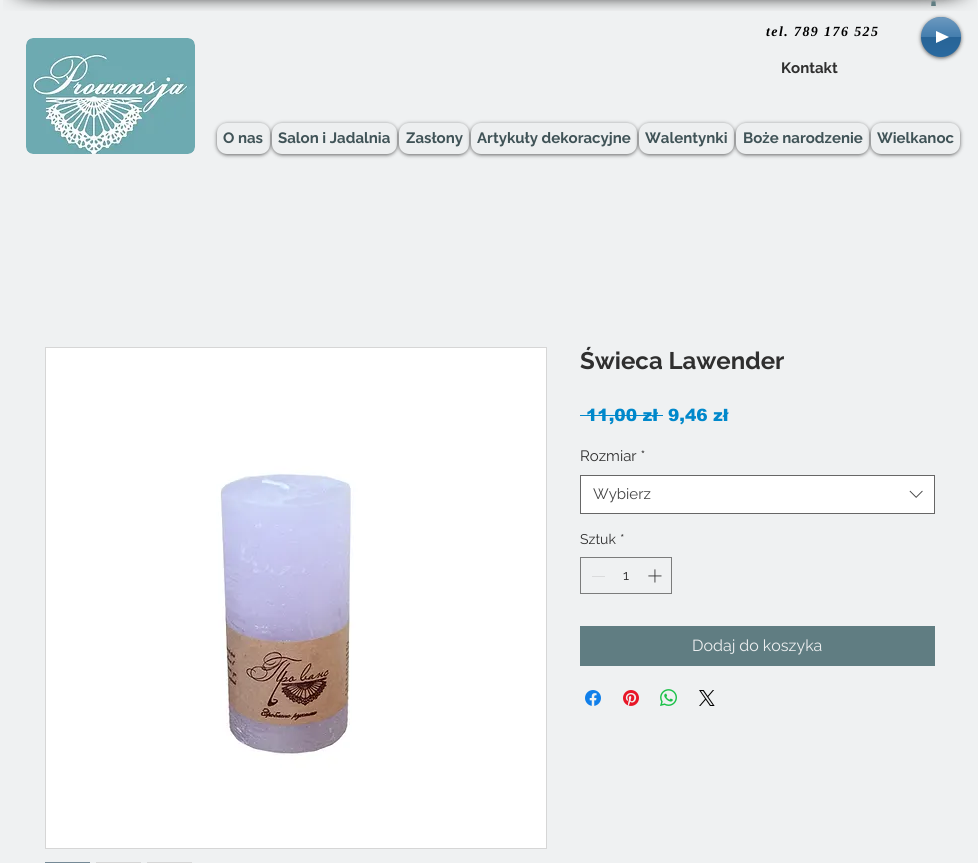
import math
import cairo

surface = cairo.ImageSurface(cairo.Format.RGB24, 978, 863)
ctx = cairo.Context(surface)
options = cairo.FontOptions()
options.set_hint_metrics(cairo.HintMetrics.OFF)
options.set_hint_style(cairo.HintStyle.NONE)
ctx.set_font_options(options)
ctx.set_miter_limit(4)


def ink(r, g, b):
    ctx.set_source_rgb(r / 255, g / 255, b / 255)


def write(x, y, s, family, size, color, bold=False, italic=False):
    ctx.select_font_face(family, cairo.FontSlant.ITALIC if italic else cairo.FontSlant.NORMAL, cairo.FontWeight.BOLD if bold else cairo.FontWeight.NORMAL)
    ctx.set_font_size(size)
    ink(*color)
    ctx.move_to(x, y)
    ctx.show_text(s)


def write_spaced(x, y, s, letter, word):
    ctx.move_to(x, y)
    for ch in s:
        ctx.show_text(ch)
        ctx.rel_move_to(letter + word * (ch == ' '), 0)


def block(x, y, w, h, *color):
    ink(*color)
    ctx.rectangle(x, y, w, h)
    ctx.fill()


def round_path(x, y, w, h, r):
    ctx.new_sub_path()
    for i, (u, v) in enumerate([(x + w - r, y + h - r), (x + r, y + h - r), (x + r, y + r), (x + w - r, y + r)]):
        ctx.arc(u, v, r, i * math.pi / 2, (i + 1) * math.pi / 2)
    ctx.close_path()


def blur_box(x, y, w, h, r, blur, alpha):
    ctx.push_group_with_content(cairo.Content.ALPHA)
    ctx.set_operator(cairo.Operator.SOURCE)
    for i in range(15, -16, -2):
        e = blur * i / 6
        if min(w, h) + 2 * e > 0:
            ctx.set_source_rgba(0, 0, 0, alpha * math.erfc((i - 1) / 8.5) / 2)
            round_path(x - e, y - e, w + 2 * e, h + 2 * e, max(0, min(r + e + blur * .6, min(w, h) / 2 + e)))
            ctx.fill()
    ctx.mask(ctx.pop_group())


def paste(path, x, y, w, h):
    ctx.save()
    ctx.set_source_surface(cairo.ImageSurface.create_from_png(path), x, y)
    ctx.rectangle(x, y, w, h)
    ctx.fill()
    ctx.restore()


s1 = dict(family="Raleway", size=15, color=(47, 47, 47), bold=True)
s2 = dict(family="Raleway", size=15, color=(64, 83, 87), bold=True)
s3 = dict(family="Raleway", size=24, color=(47, 47, 47), bold=True)
s4 = dict(family="arial Black", size=17, color=(0, 136, 203))
s5 = dict(family="Raleway", size=15, color=(47, 47, 47))
s6 = dict(family="Raleway", size=15, color=(68, 68, 68))
s7 = dict(family="Raleway", size=14, color=(47, 47, 47))
s8 = dict(family="Raleway", size=16, color=(237, 239, 240))

ink(239, 241, 242)
ctx.paint()
paste("pic1.png", 3, 0, 97, 11)
paste("pic2.png", 100, 0, 780, 11)
paste("pic3.png", 880, 0, 97, 11)
paste("pic4.png", 931, 0, 5, 6)
ctx.select_font_face("Liberation Serif", cairo.FontSlant.ITALIC, cairo.FontWeight.BOLD)
ctx.set_font_size(14)
ink(0, 0, 0)
write_spaced(766, 36, "tel. 789 176 525", 1.4, 0)
ink(0, 0, 0)
blur_box(921, 18, 40, 40, 20, 2, 0.6)
ink(43, 108, 163)
ctx.arc(941, 37, 20, 0, 2 * math.pi)
ctx.fill()
paste("pic5.png", 921, 17, 40, 39)
ink(255, 255, 255)
ctx.new_path()
ctx.move_to(936, 43)
ctx.line_to(936, 31)
ctx.line_to(949, 37)
ctx.close_path()
ctx.fill()
paste("pic6.png", 26, 38, 169, 116)
write(781, 73, "Kontakt", **s1)
ink(0, 0, 0)
blur_box(217, 124, 53, 31, 10, 2, 0.6)
ink(237, 239, 240)
round_path(217, 123, 53, 31, 10)
ctx.fill()
write(223, 143, "O nas", **s2)
ink(0, 0, 0)
blur_box(272, 124, 125, 31, 10, 2, 0.6)
ink(237, 239, 240)
round_path(272, 123, 125, 31, 10)
ctx.fill()
write(278, 143, "Salon i Jadalnia", **s2)
ink(0, 0, 0)
blur_box(399, 124, 70, 31, 10, 2, 0.6)
ink(237, 239, 240)
round_path(399, 123, 70, 31, 10)
ctx.fill()
write(406, 143, "Zasłony", **s2)
ink(0, 0, 0)
blur_box(471, 124, 166, 31, 10, 2, 0.6)
ink(237, 239, 240)
round_path(471, 123, 166, 31, 10)
ctx.fill()
write(477, 143, "Artykuły dekoracyjne", **s2)
ink(0, 0, 0)
blur_box(639, 124, 95, 31, 10, 2, 0.6)
ink(237, 239, 240)
round_path(639, 123, 95, 31, 10)
ctx.fill()
write(645, 143, "Walentynki", **s2)
ink(0, 0, 0)
blur_box(736, 124, 133, 31, 10, 2, 0.6)
ink(237, 239, 240)
round_path(736, 123, 133, 31, 10)
ctx.fill()
write(743, 143, "Boże narodzenie", **s2)
ink(0, 0, 0)
blur_box(871, 124, 89, 31, 10, 2, 0.6)
ink(237, 239, 240)
round_path(871, 123, 89, 31, 10)
ctx.fill()
write(877, 143, "Wielkanoc", **s2)
ctx.rectangle(45.5, 347.5, 501, 501)
ink(214, 214, 214)
ctx.set_line_width(1)
ctx.stroke()
paste("pic7.png", 46, 348, 500, 500)
ctx.rectangle(45.5, 862.5, 44, 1)
ink(117, 137, 150)
ctx.stroke()
block(96, 862, 45, 1, 214, 214, 214)
block(147, 862, 45, 1, 214, 214, 214)
write(580, 369, "Świeca Lawender", **s3)
write(586, 421, "11,00 zł", **s4)
block(580, 415, 83, 1, 0, 136, 203)
write(668, 421, "9,46 zł", **s4)
write(580, 461, "Rozmiar *", **s5)
ink(255, 255, 255)
ctx.rectangle(580.5, 475.5, 354, 38)
ctx.fill_preserve()
ink(102, 102, 102)
ctx.stroke()
write(593, 499, "Wybierz", **s6)
paste("pic8.png", 909, 490, 14, 8)
write(580, 544, "Sztuk", **s7)
write(620, 544, "*", **s7)
ctx.rectangle(580.5, 557.5, 91, 36)
ink(123, 124, 124)
ctx.stroke()
block(592, 576, 13, 1, 218, 219, 220)
write(623, 580, "1", **s7)
paste("pic9.png", 648, 569, 14, 14)
block(580, 626, 355, 40, 96, 125, 130)
write(692, 651, "Dodaj do koszyka", **s8)
paste("pic10.png", 585, 690, 16, 16)
paste("pic11.png", 623, 690, 16, 16)
paste("pic12.png", 660, 689, 17, 17)
paste("pic13.png", 699, 690, 16, 16)
surface.write_to_png("screenshot.png")
